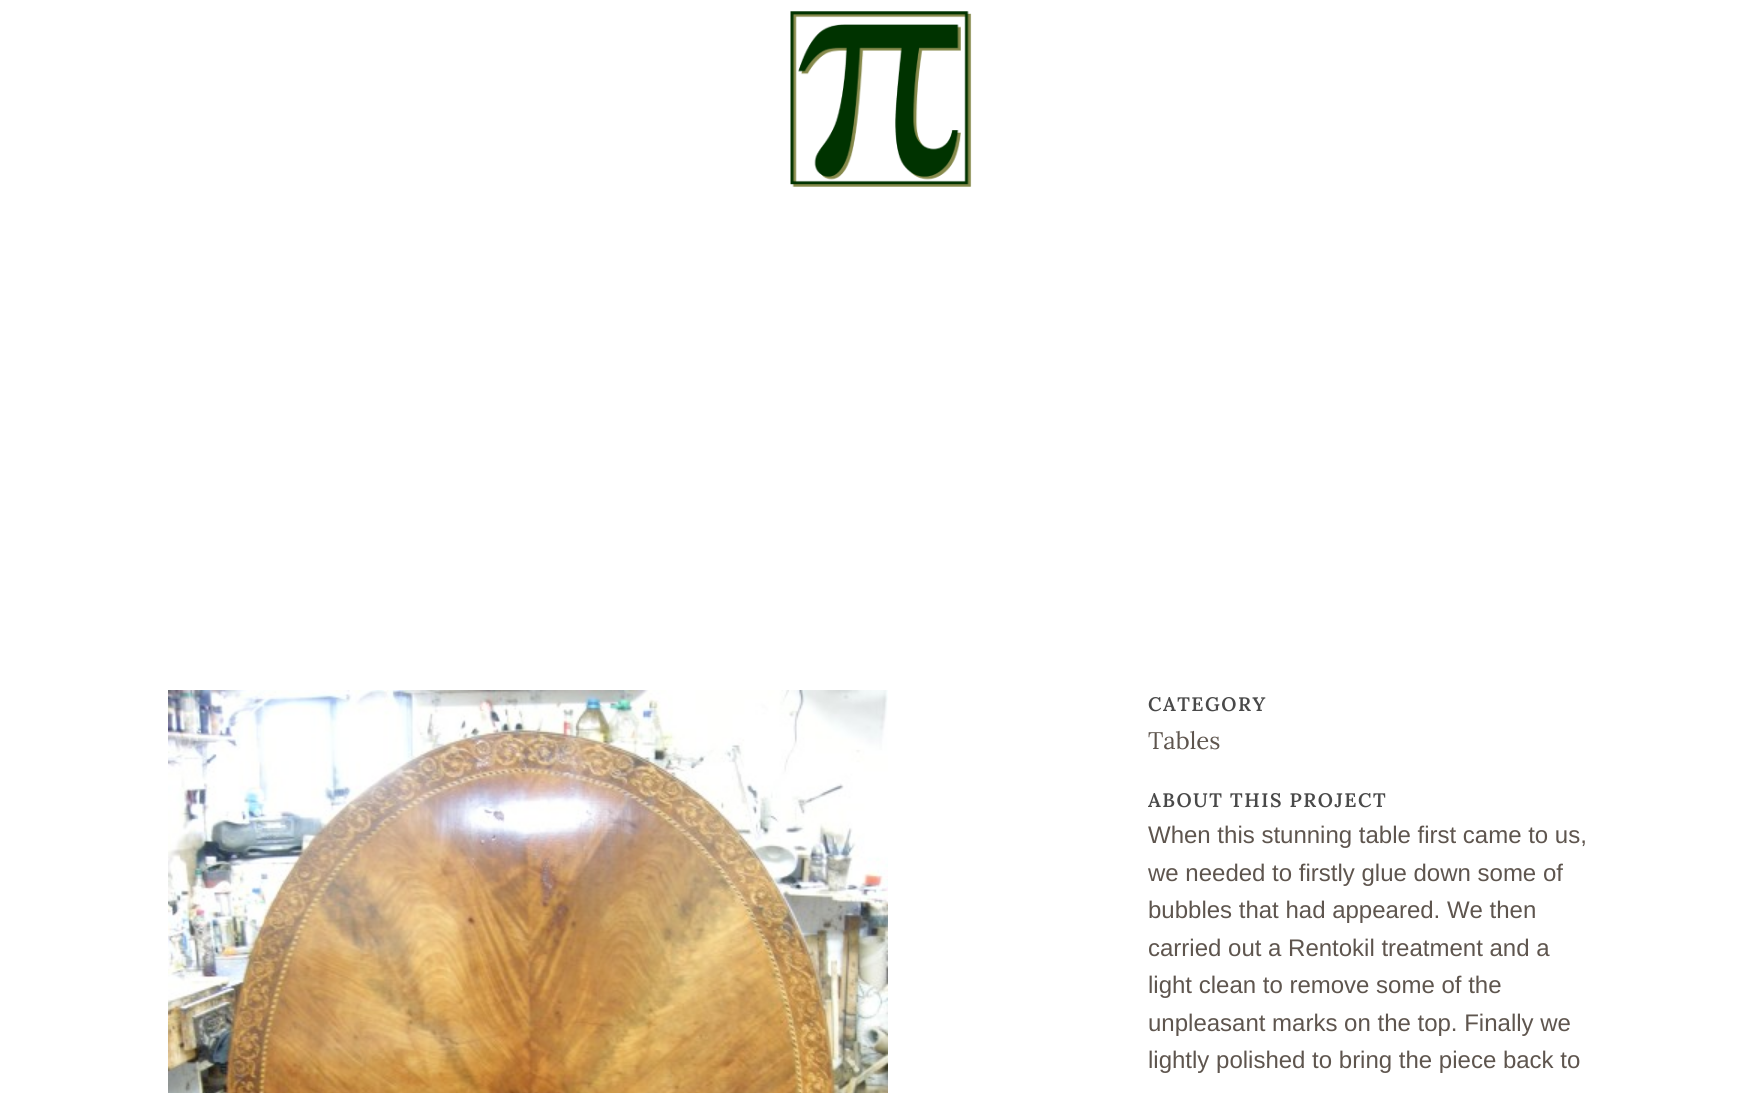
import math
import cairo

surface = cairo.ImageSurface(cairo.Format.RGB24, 1761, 1093)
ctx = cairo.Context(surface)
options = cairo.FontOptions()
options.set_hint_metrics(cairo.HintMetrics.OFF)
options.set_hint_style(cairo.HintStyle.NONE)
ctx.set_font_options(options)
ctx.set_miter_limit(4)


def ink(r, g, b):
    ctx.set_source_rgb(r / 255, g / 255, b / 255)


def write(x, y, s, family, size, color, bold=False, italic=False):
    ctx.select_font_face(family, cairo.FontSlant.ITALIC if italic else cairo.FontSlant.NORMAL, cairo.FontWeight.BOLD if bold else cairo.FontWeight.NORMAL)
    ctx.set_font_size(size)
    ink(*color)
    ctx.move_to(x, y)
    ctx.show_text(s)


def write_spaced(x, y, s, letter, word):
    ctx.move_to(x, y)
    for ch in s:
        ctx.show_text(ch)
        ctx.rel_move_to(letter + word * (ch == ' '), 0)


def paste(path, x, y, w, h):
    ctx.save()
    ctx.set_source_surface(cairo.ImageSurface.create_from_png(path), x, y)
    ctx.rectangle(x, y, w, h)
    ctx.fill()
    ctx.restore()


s1 = dict(family="Lora", size=24, color=(94, 85, 78))
s2 = dict(family="Liberation Sans", size=24, color=(94, 85, 78))

ink(255, 255, 255)
ctx.paint()
paste("pic1.png", 790, 11, 182, 176)
paste("pic2.png", 168, 690, 720, 403)
ctx.select_font_face("Lora SemiBold")
ctx.set_font_size(19.5)
ink(73, 73, 73)
write_spaced(1148, 711, "CATEGORY", 1.5, 0)
write(1148, 749, "Tables", **s1)
ctx.select_font_face("Lora SemiBold")
ctx.set_font_size(19.5)
ink(73, 73, 73)
write_spaced(1148, 807, "ABOUT THIS PROJECT", 1.5, 0)
write(1148, 843, "When this stunning table first came to us,", **s2)
write(1148, 881, "we needed to firstly glue down some of", **s2)
write(1148, 918, "bubbles that had appeared. We then", **s2)
write(1148, 956, "carried out a Rentokil treatment and a", **s2)
write(1148, 993, "light clean to remove some of the", **s2)
write(1148, 1031, "unpleasant marks on the top. Finally we", **s2)
write(1148, 1068, "lightly polished to bring the piece back to", **s2)
surface.write_to_png("screenshot.png")
